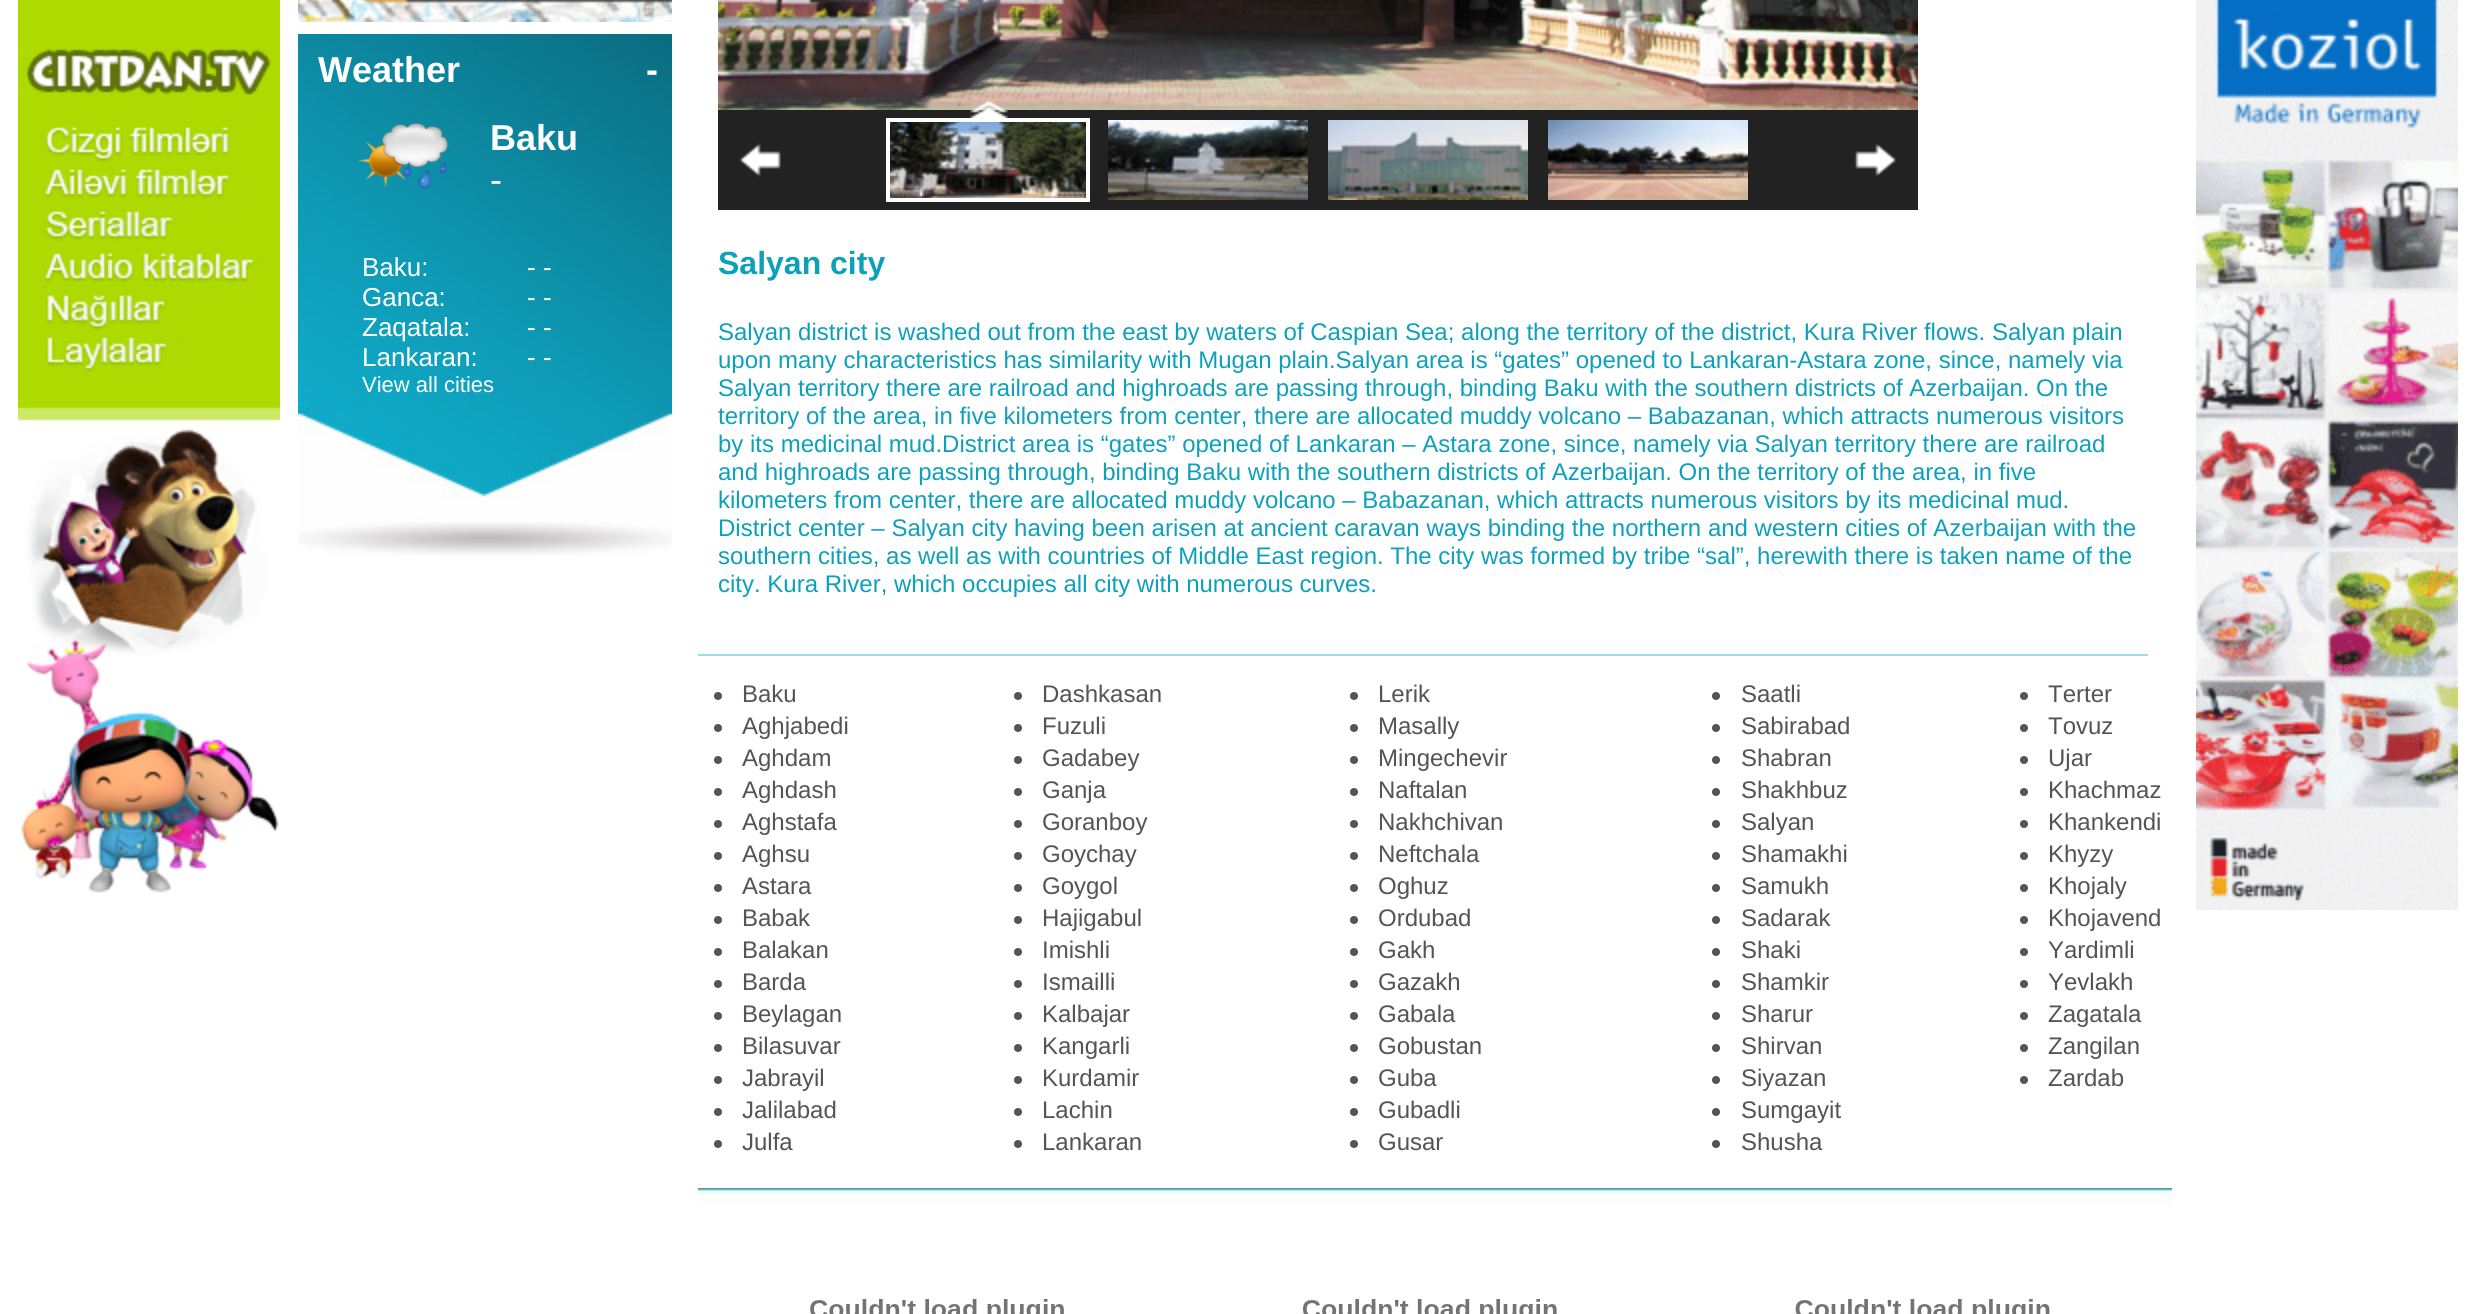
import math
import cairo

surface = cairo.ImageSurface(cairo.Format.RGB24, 2476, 1314)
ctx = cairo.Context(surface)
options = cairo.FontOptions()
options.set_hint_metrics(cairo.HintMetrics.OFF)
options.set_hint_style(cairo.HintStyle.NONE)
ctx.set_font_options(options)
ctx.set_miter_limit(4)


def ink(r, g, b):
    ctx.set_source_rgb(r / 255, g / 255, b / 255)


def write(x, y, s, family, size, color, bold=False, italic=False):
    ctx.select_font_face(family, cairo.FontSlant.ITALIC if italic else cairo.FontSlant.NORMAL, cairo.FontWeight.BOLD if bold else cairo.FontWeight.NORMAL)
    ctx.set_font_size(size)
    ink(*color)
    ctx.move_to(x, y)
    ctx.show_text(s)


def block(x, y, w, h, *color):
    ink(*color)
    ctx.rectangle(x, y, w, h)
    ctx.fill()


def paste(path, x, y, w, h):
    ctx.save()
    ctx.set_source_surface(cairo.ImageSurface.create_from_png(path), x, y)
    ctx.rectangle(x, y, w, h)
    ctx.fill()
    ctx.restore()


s1 = dict(family="Liberation Sans", size=36, color=(255, 255, 255), bold=True)
s2 = dict(family="Liberation Sans", size=36, color=(255, 255, 255))
s3 = dict(family="Liberation Sans", size=26, color=(255, 255, 255))
s4 = dict(family="Liberation Sans", size=22, color=(255, 255, 255))
s5 = dict(family="Liberation Sans", size=32, color=(13, 160, 187), bold=True)
s6 = dict(family="Liberation Sans", size=24, color=(13, 160, 187))
s7 = dict(family="Liberation Sans", size=24, color=(85, 83, 83))

ink(255, 255, 255)
ctx.paint()
paste("pic1.png", 18, 0, 262, 893)
paste("pic2.png", 298, 0, 374, 22)
paste("pic3.png", 298, 34, 374, 522)
write(318, 82, "Weather", **s1)
write(646, 82, "-", **s1)
paste("pic4.png", 358, 123, 91, 66)
write(490, 150, "Baku", **s1)
write(490, 192, "-", **s2)
write(362, 276, "Baku:", **s3)
write(527, 276, "- -", **s3)
write(362, 306, "Ganca:", **s3)
write(527, 306, "- -", **s3)
write(362, 336, "Zaqatala:", **s3)
write(527, 336, "- -", **s3)
write(362, 366, "Lankaran:", **s3)
write(527, 366, "- -", **s3)
write(362, 392, "View all cities", **s4)
block(698, 654, 1450, 2, 155, 220, 232)
block(718, 110, 1200, 100, 34, 34, 34)
paste("pic5.png", 718, 0, 1200, 110)
paste("pic8.png", 890, 122, 196, 76)
ctx.rectangle(888, 120, 200, 80)
ink(255, 255, 255)
ctx.set_line_width(4)
ctx.stroke()
paste("pic6.png", 970, 99, 38, 19)
paste("pic7.png", 739, 143, 42, 34)
paste("pic9.png", 1108, 120, 200, 80)
paste("pic10.png", 1328, 120, 200, 80)
paste("pic11.png", 1548, 120, 200, 80)
paste("pic12.png", 1855, 143, 42, 34)
write(718, 274, "Salyan city", **s5)
write(718, 340, "Salyan district is washed out from the east by waters of Caspian Sea; along the territory of the district, Kura River flows. Salyan plain", **s6)
write(718, 368, "upon many characteristics has similarity with Mugan plain.Salyan area is “gates” opened to Lankaran-Astara zone, since, namely via", **s6)
write(718, 396, "Salyan territory there are railroad and highroads are passing through, binding Baku with the southern districts of Azerbaijan. On the", **s6)
write(718, 424, "territory of the area, in five kilometers from center, there are allocated muddy volcano – Babazanan, which attracts numerous visitors", **s6)
write(718, 452, "by its medicinal mud.District area is “gates” opened of Lankaran – Astara zone, since, namely via Salyan territory there are railroad", **s6)
write(718, 480, "and highroads are passing through, binding Baku with the southern districts of Azerbaijan. On the territory of the area, in five", **s6)
write(718, 508, "kilometers from center, there are allocated muddy volcano – Babazanan, which attracts numerous visitors by its medicinal mud.", **s6)
write(718, 536, "District center – Salyan city having been arisen at ancient caravan ways binding the northern and western cities of Azerbaijan with the", **s6)
write(718, 564, "southern cities, as well as with countries of Middle East region. The city was formed by tribe “sal”, herewith there is taken name of the", **s6)
write(718, 592, "city. Kura River, which occupies all city with numerous curves.", **s6)
ink(85, 83, 83)
ctx.new_path()
ctx.arc(718, 696, 4, 0, 2 * math.pi)
ctx.fill()
write(742, 702, "Baku", **s7)
ctx.new_path()
ctx.arc(1018, 696, 4, 0, 2 * math.pi)
ctx.fill()
write(1042, 702, "Dashkasan", **s7)
ctx.new_path()
ctx.arc(1354, 696, 4, 0, 2 * math.pi)
ctx.fill()
write(1378, 702, "Lerik", **s7)
ctx.new_path()
ctx.arc(1716, 696, 4, 0, 2 * math.pi)
ctx.fill()
write(1741, 702, "Saatli", **s7)
ctx.new_path()
ctx.arc(2024, 696, 4, 0, 2 * math.pi)
ctx.fill()
write(2048, 702, "Terter", **s7)
ctx.new_path()
ctx.arc(718, 728, 4, 0, 2 * math.pi)
ctx.fill()
write(742, 734, "Aghjabedi", **s7)
ctx.new_path()
ctx.arc(1018, 728, 4, 0, 2 * math.pi)
ctx.fill()
write(1042, 734, "Fuzuli", **s7)
ctx.new_path()
ctx.arc(1354, 728, 4, 0, 2 * math.pi)
ctx.fill()
write(1378, 734, "Masally", **s7)
ctx.new_path()
ctx.arc(1716, 728, 4, 0, 2 * math.pi)
ctx.fill()
write(1741, 734, "Sabirabad", **s7)
ctx.new_path()
ctx.arc(2024, 728, 4, 0, 2 * math.pi)
ctx.fill()
write(2048, 734, "Tovuz", **s7)
ctx.new_path()
ctx.arc(718, 760, 4, 0, 2 * math.pi)
ctx.fill()
write(742, 766, "Aghdam", **s7)
ctx.new_path()
ctx.arc(1018, 760, 4, 0, 2 * math.pi)
ctx.fill()
write(1042, 766, "Gadabey", **s7)
ctx.new_path()
ctx.arc(1354, 760, 4, 0, 2 * math.pi)
ctx.fill()
write(1378, 766, "Mingechevir", **s7)
ctx.new_path()
ctx.arc(1716, 760, 4, 0, 2 * math.pi)
ctx.fill()
write(1741, 766, "Shabran", **s7)
ctx.new_path()
ctx.arc(2024, 760, 4, 0, 2 * math.pi)
ctx.fill()
write(2048, 766, "Ujar", **s7)
ctx.new_path()
ctx.arc(718, 792, 4, 0, 2 * math.pi)
ctx.fill()
write(742, 798, "Aghdash", **s7)
ctx.new_path()
ctx.arc(1018, 792, 4, 0, 2 * math.pi)
ctx.fill()
write(1042, 798, "Ganja", **s7)
ctx.new_path()
ctx.arc(1354, 792, 4, 0, 2 * math.pi)
ctx.fill()
write(1378, 798, "Naftalan", **s7)
ctx.new_path()
ctx.arc(1716, 792, 4, 0, 2 * math.pi)
ctx.fill()
write(1741, 798, "Shakhbuz", **s7)
ctx.new_path()
ctx.arc(2024, 792, 4, 0, 2 * math.pi)
ctx.fill()
write(2048, 798, "Khachmaz", **s7)
ctx.new_path()
ctx.arc(718, 824, 4, 0, 2 * math.pi)
ctx.fill()
write(742, 830, "Aghstafa", **s7)
ctx.new_path()
ctx.arc(1018, 824, 4, 0, 2 * math.pi)
ctx.fill()
write(1042, 830, "Goranboy", **s7)
ctx.new_path()
ctx.arc(1354, 824, 4, 0, 2 * math.pi)
ctx.fill()
write(1378, 830, "Nakhchivan", **s7)
ctx.new_path()
ctx.arc(1716, 824, 4, 0, 2 * math.pi)
ctx.fill()
write(1741, 830, "Salyan", **s7)
ctx.new_path()
ctx.arc(2024, 824, 4, 0, 2 * math.pi)
ctx.fill()
write(2048, 830, "Khankendi", **s7)
ctx.new_path()
ctx.arc(718, 856, 4, 0, 2 * math.pi)
ctx.fill()
write(742, 862, "Aghsu", **s7)
ctx.new_path()
ctx.arc(1018, 856, 4, 0, 2 * math.pi)
ctx.fill()
write(1042, 862, "Goychay", **s7)
ctx.new_path()
ctx.arc(1354, 856, 4, 0, 2 * math.pi)
ctx.fill()
write(1378, 862, "Neftchala", **s7)
ctx.new_path()
ctx.arc(1716, 856, 4, 0, 2 * math.pi)
ctx.fill()
write(1741, 862, "Shamakhi", **s7)
ctx.new_path()
ctx.arc(2024, 856, 4, 0, 2 * math.pi)
ctx.fill()
write(2048, 862, "Khyzy", **s7)
ctx.new_path()
ctx.arc(718, 888, 4, 0, 2 * math.pi)
ctx.fill()
write(742, 894, "Astara", **s7)
ctx.new_path()
ctx.arc(1018, 888, 4, 0, 2 * math.pi)
ctx.fill()
write(1042, 894, "Goygol", **s7)
ctx.new_path()
ctx.arc(1354, 888, 4, 0, 2 * math.pi)
ctx.fill()
write(1378, 894, "Oghuz", **s7)
ctx.new_path()
ctx.arc(1716, 888, 4, 0, 2 * math.pi)
ctx.fill()
write(1741, 894, "Samukh", **s7)
ctx.new_path()
ctx.arc(2024, 888, 4, 0, 2 * math.pi)
ctx.fill()
write(2048, 894, "Khojaly", **s7)
ctx.new_path()
ctx.arc(718, 920, 4, 0, 2 * math.pi)
ctx.fill()
write(742, 926, "Babak", **s7)
ctx.new_path()
ctx.arc(1018, 920, 4, 0, 2 * math.pi)
ctx.fill()
write(1042, 926, "Hajigabul", **s7)
ctx.new_path()
ctx.arc(1354, 920, 4, 0, 2 * math.pi)
ctx.fill()
write(1378, 926, "Ordubad", **s7)
ctx.new_path()
ctx.arc(1716, 920, 4, 0, 2 * math.pi)
ctx.fill()
write(1741, 926, "Sadarak", **s7)
ctx.new_path()
ctx.arc(2024, 920, 4, 0, 2 * math.pi)
ctx.fill()
write(2048, 926, "Khojavend", **s7)
ctx.new_path()
ctx.arc(718, 952, 4, 0, 2 * math.pi)
ctx.fill()
write(742, 958, "Balakan", **s7)
ctx.new_path()
ctx.arc(1018, 952, 4, 0, 2 * math.pi)
ctx.fill()
write(1042, 958, "Imishli", **s7)
ctx.new_path()
ctx.arc(1354, 952, 4, 0, 2 * math.pi)
ctx.fill()
write(1378, 958, "Gakh", **s7)
ctx.new_path()
ctx.arc(1716, 952, 4, 0, 2 * math.pi)
ctx.fill()
write(1741, 958, "Shaki", **s7)
ctx.new_path()
ctx.arc(2024, 952, 4, 0, 2 * math.pi)
ctx.fill()
write(2048, 958, "Yardimli", **s7)
ctx.new_path()
ctx.arc(718, 984, 4, 0, 2 * math.pi)
ctx.fill()
write(742, 990, "Barda", **s7)
ctx.new_path()
ctx.arc(1018, 984, 4, 0, 2 * math.pi)
ctx.fill()
write(1042, 990, "Ismailli", **s7)
ctx.new_path()
ctx.arc(1354, 984, 4, 0, 2 * math.pi)
ctx.fill()
write(1378, 990, "Gazakh", **s7)
ctx.new_path()
ctx.arc(1716, 984, 4, 0, 2 * math.pi)
ctx.fill()
write(1741, 990, "Shamkir", **s7)
ctx.new_path()
ctx.arc(2024, 984, 4, 0, 2 * math.pi)
ctx.fill()
write(2048, 990, "Yevlakh", **s7)
ctx.new_path()
ctx.arc(718, 1016, 4, 0, 2 * math.pi)
ctx.fill()
write(742, 1022, "Beylagan", **s7)
ctx.new_path()
ctx.arc(1018, 1016, 4, 0, 2 * math.pi)
ctx.fill()
write(1042, 1022, "Kalbajar", **s7)
ctx.new_path()
ctx.arc(1354, 1016, 4, 0, 2 * math.pi)
ctx.fill()
write(1378, 1022, "Gabala", **s7)
ctx.new_path()
ctx.arc(1716, 1016, 4, 0, 2 * math.pi)
ctx.fill()
write(1741, 1022, "Sharur", **s7)
ctx.new_path()
ctx.arc(2024, 1016, 4, 0, 2 * math.pi)
ctx.fill()
write(2048, 1022, "Zagatala", **s7)
ctx.new_path()
ctx.arc(718, 1048, 4, 0, 2 * math.pi)
ctx.fill()
write(742, 1054, "Bilasuvar", **s7)
ctx.new_path()
ctx.arc(1018, 1048, 4, 0, 2 * math.pi)
ctx.fill()
write(1042, 1054, "Kangarli", **s7)
ctx.new_path()
ctx.arc(1354, 1048, 4, 0, 2 * math.pi)
ctx.fill()
write(1378, 1054, "Gobustan", **s7)
ctx.new_path()
ctx.arc(1716, 1048, 4, 0, 2 * math.pi)
ctx.fill()
write(1741, 1054, "Shirvan", **s7)
ctx.new_path()
ctx.arc(2024, 1048, 4, 0, 2 * math.pi)
ctx.fill()
write(2048, 1054, "Zangilan", **s7)
ctx.new_path()
ctx.arc(718, 1080, 4, 0, 2 * math.pi)
ctx.fill()
write(742, 1086, "Jabrayil", **s7)
ctx.new_path()
ctx.arc(1018, 1080, 4, 0, 2 * math.pi)
ctx.fill()
write(1042, 1086, "Kurdamir", **s7)
ctx.new_path()
ctx.arc(1354, 1080, 4, 0, 2 * math.pi)
ctx.fill()
write(1378, 1086, "Guba", **s7)
ctx.new_path()
ctx.arc(1716, 1080, 4, 0, 2 * math.pi)
ctx.fill()
write(1741, 1086, "Siyazan", **s7)
ctx.new_path()
ctx.arc(2024, 1080, 4, 0, 2 * math.pi)
ctx.fill()
write(2048, 1086, "Zardab", **s7)
ctx.new_path()
ctx.arc(718, 1112, 4, 0, 2 * math.pi)
ctx.fill()
write(742, 1118, "Jalilabad", **s7)
ctx.new_path()
ctx.arc(1018, 1112, 4, 0, 2 * math.pi)
ctx.fill()
write(1042, 1118, "Lachin", **s7)
ctx.new_path()
ctx.arc(1354, 1112, 4, 0, 2 * math.pi)
ctx.fill()
write(1378, 1118, "Gubadli", **s7)
ctx.new_path()
ctx.arc(1716, 1112, 4, 0, 2 * math.pi)
ctx.fill()
write(1741, 1118, "Sumgayit", **s7)
ctx.new_path()
ctx.arc(718, 1144, 4, 0, 2 * math.pi)
ctx.fill()
write(742, 1150, "Julfa", **s7)
ctx.new_path()
ctx.arc(1018, 1144, 4, 0, 2 * math.pi)
ctx.fill()
write(1042, 1150, "Lankaran", **s7)
ctx.new_path()
ctx.arc(1354, 1144, 4, 0, 2 * math.pi)
ctx.fill()
write(1378, 1150, "Gusar", **s7)
ctx.new_path()
ctx.arc(1716, 1144, 4, 0, 2 * math.pi)
ctx.fill()
write(1741, 1150, "Shusha", **s7)
paste("pic13.png", 698, 1188, 1474, 19)
paste("pic14.png", 810, 1299, 254, 15)
paste("pic15.png", 1302, 1299, 255, 15)
paste("pic16.png", 1795, 1299, 255, 15)
paste("pic17.png", 2196, 0, 262, 910)
surface.write_to_png("screenshot.png")
